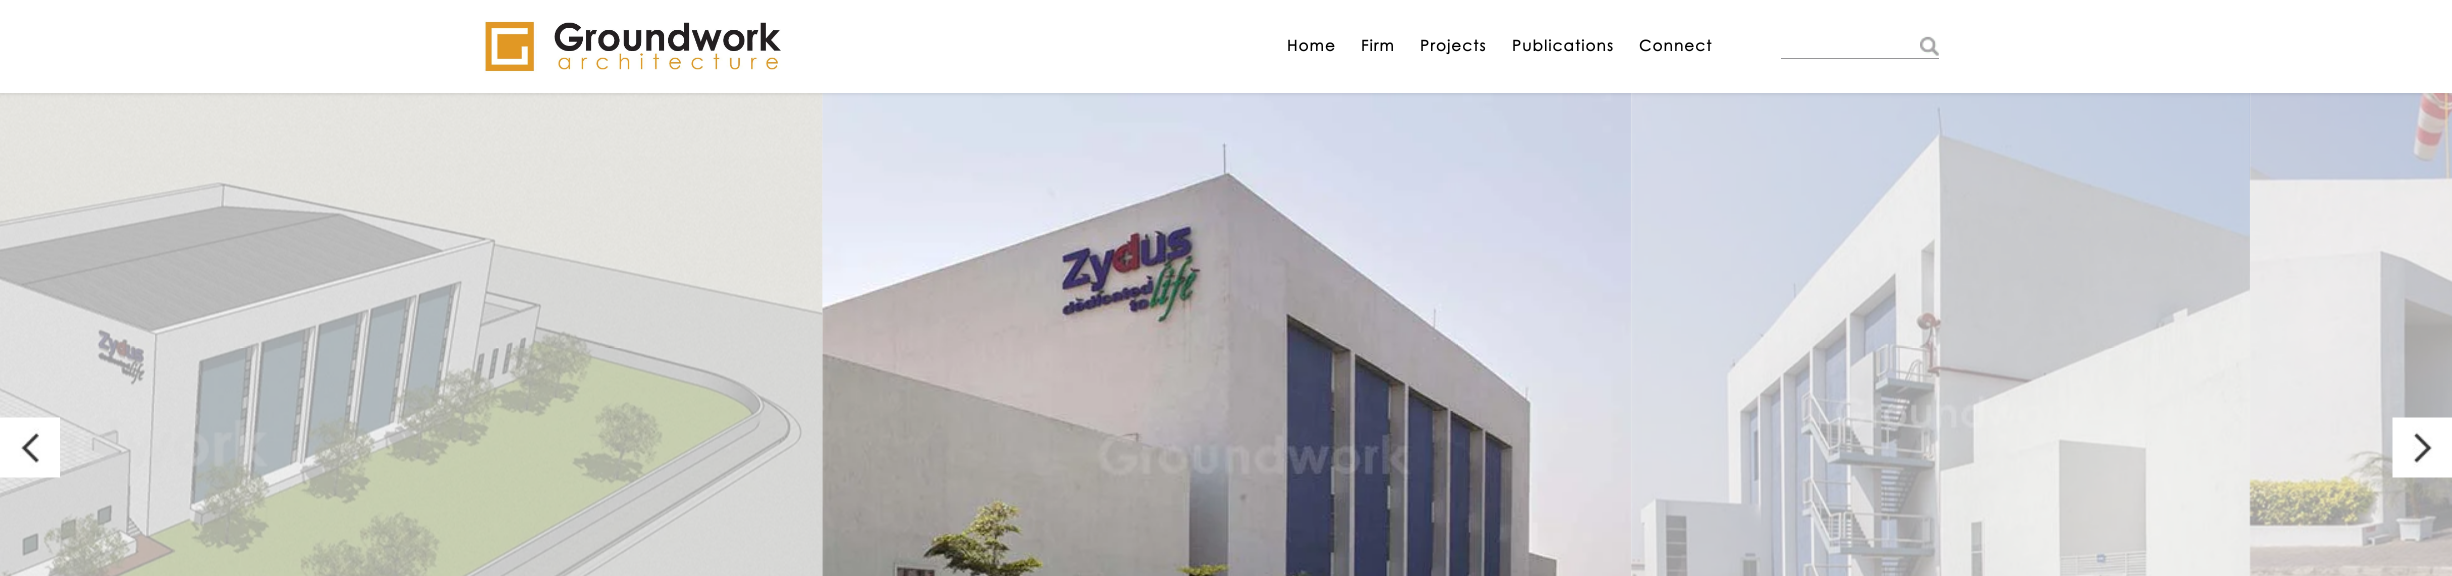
import math
import cairo

surface = cairo.ImageSurface(cairo.Format.RGB24, 2452, 576)
ctx = cairo.Context(surface)
options = cairo.FontOptions()
options.set_hint_metrics(cairo.HintMetrics.OFF)
options.set_hint_style(cairo.HintStyle.NONE)
ctx.set_font_options(options)
ctx.set_miter_limit(4)


def ink(r, g, b):
    ctx.set_source_rgb(r / 255, g / 255, b / 255)


def write_spaced(x, y, s, letter, word):
    ctx.move_to(x, y)
    for ch in s:
        ctx.show_text(ch)
        ctx.rel_move_to(letter + word * (ch == ' '), 0)


def block(x, y, w, h, *color):
    ink(*color)
    ctx.rectangle(x, y, w, h)
    ctx.fill()


def round_path(x, y, w, h, r):
    ctx.new_sub_path()
    for i, (u, v) in enumerate([(x + w - r, y + h - r), (x + r, y + h - r), (x + r, y + r), (x + w - r, y + r)]):
        ctx.arc(u, v, r, i * math.pi / 2, (i + 1) * math.pi / 2)
    ctx.close_path()


def blur_box(x, y, w, h, r, blur, alpha):
    ctx.push_group_with_content(cairo.Content.ALPHA)
    ctx.set_operator(cairo.Operator.SOURCE)
    for i in range(15, -16, -2):
        e = blur * i / 6
        if min(w, h) + 2 * e > 0:
            ctx.set_source_rgba(0, 0, 0, alpha * math.erfc((i - 1) / 8.5) / 2)
            round_path(x - e, y - e, w + 2 * e, h + 2 * e, max(0, min(r + e + blur * .6, min(w, h) / 2 + e)))
            ctx.fill()
    ctx.mask(ctx.pop_group())


def paste(path, x, y, w, h):
    ctx.save()
    ctx.set_source_surface(cairo.ImageSurface.create_from_png(path), x, y)
    ctx.rectangle(x, y, w, h)
    ctx.fill()
    ctx.restore()


ink(255, 255, 255)
ctx.paint()
block(0, 93, 2452, 483, 237, 237, 237)
paste("pic3.png", 0, 93, 823, 483)
paste("pic4.png", 822, 93, 809, 483)
paste("pic5.png", 1631, 93, 619, 483)
paste("pic6.png", 2249, 93, 203, 483)
ctx.save()
ctx.set_fill_rule(cairo.FillRule.EVEN_ODD)
ctx.new_path()
ctx.move_to(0, 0)
ctx.line_to(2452, 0)
ctx.line_to(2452, 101)
ctx.line_to(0, 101)
ctx.close_path()
ctx.move_to(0, 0)
ctx.line_to(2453, 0)
ctx.line_to(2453, 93)
ctx.line_to(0, 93)
ctx.close_path()
ctx.clip()
ink(0, 0, 0)
blur_box(0, 1, 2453, 93, 0, 2, 0.11)
ctx.restore()
ctx.set_source_rgba(1, 1, 1, 0.8)
ctx.rectangle(0, 92, 2452, 1)
ctx.fill()
paste("pic1.png", 484, 20, 297, 54)
ctx.select_font_face("Century Gothic", cairo.FontSlant.NORMAL, cairo.FontWeight.BOLD)
ctx.set_font_size(15)
ink(0, 0, 0)
write_spaced(1287, 51, "Home", 1.25, 0)
write_spaced(1361, 51, "Firm", 1.25, 0)
write_spaced(1420, 51, "Projects", 1.25, 0)
write_spaced(1512, 51, "Publications", 1.25, 0)
write_spaced(1639, 51, "Connect", 1.25, 0)
paste("pic2.png", 1920, 36, 19, 20)
block(1781, 58, 158, 1, 150, 150, 152)
paste("pic7.png", 0, 417, 60, 61)
paste("pic8.png", 2392, 417, 60, 61)
surface.write_to_png("screenshot.png")
